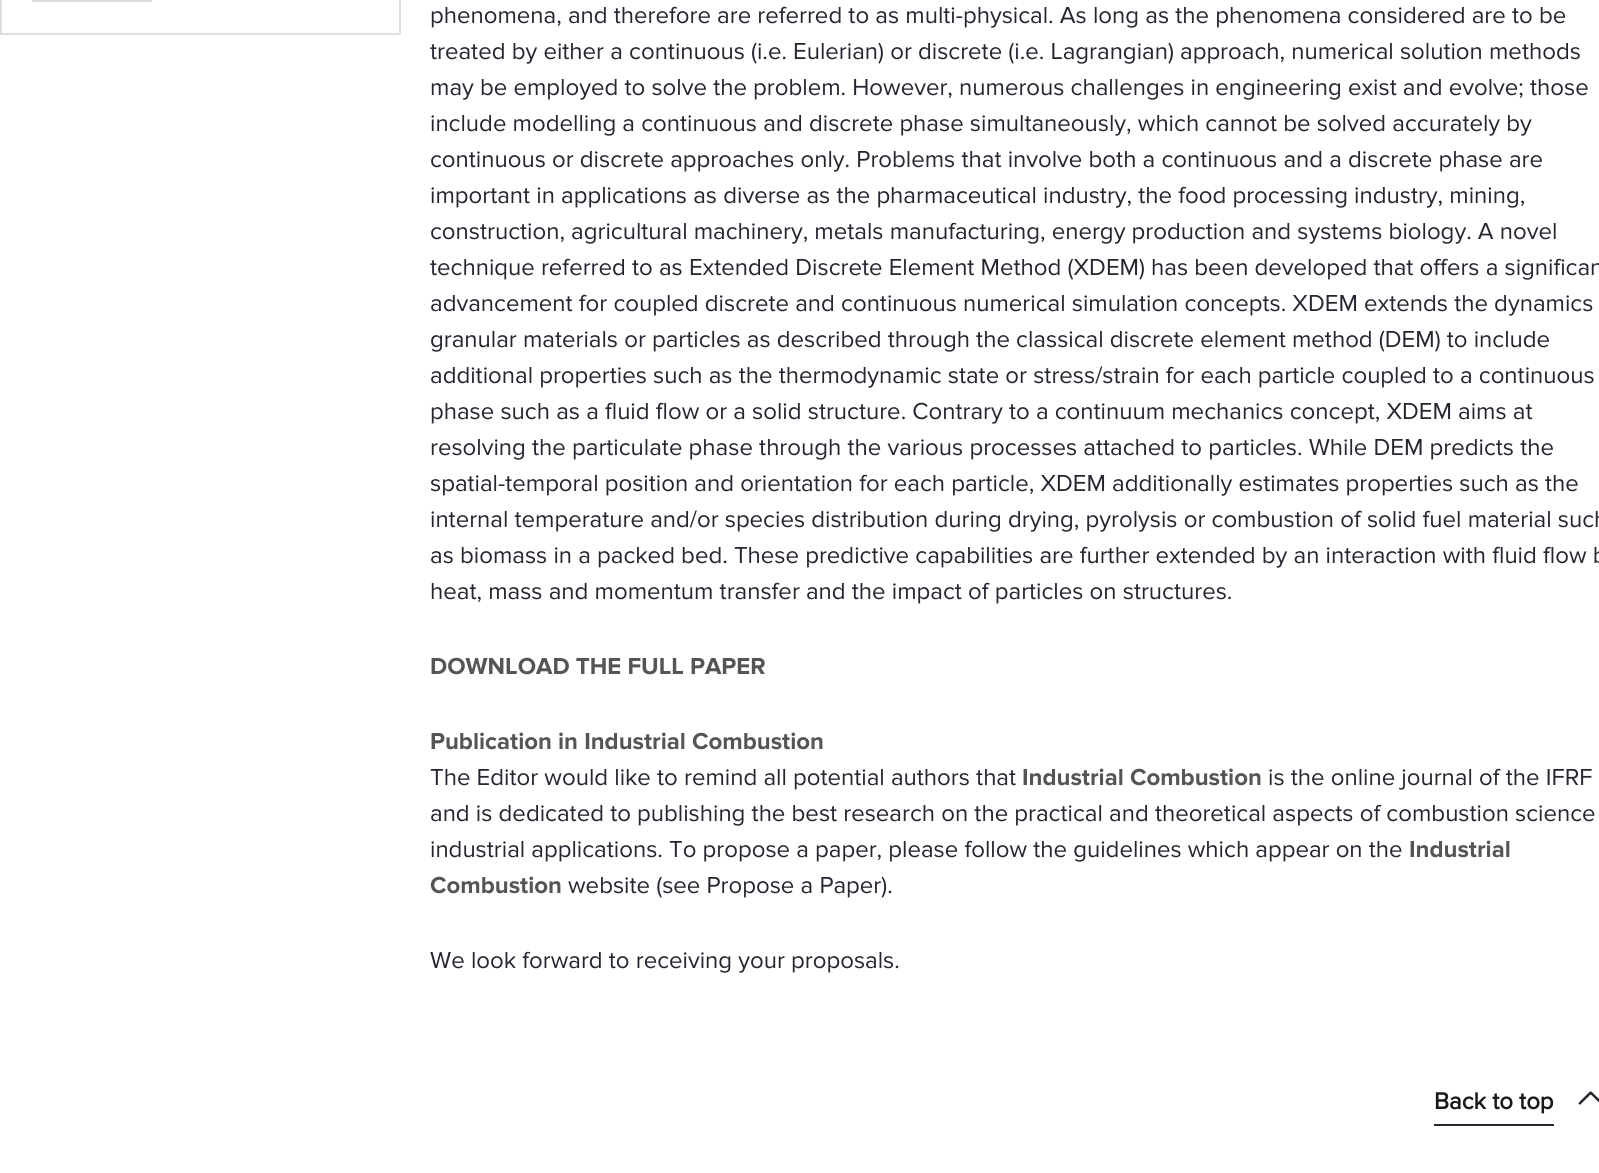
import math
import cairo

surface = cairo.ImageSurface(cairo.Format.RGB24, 1599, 1173)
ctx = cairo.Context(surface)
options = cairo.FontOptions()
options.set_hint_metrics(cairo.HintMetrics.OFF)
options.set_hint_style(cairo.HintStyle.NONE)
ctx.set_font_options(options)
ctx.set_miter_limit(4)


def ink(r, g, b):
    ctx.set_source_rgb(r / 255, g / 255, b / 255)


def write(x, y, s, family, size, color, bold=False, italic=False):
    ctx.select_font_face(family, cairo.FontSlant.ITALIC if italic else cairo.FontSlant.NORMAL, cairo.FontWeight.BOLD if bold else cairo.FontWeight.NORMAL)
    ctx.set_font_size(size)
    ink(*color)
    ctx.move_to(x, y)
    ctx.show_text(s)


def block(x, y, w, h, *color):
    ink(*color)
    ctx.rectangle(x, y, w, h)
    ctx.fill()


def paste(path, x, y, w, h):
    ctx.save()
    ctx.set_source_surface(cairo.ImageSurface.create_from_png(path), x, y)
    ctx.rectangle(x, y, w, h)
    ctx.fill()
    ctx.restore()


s1 = dict(family="Proxima Nova", size=24, color=(36, 39, 48))
s2 = dict(family="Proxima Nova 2", size=24, color=(85, 85, 85), bold=True)
s3 = dict(family="Proxima Nova", size=24, color=(26, 26, 26), bold=True)

ink(255, 255, 255)
ctx.paint()
ctx.rectangle(1, -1, 399, 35)
ink(222, 222, 222)
ctx.stroke()
block(32, 0, 120, 2, 222, 222, 222)
write(430, 23, "phenomena, and therefore are referred to as multi-physical. As long as the phenomena considered are to be", **s1)
write(430, 59, "treated by either a continuous (i.e. Eulerian) or discrete (i.e. Lagrangian) approach, numerical solution methods", **s1)
write(430, 95, "may be employed to solve the problem. However, numerous challenges in engineering exist and evolve; those", **s1)
write(430, 131, "include modelling a continuous and discrete phase simultaneously, which cannot be solved accurately by", **s1)
write(430, 167, "continuous or discrete approaches only. Problems that involve both a continuous and a discrete phase are", **s1)
write(430, 203, "important in applications as diverse as the pharmaceutical industry, the food processing industry, mining,", **s1)
write(430, 239, "construction, agricultural machinery, metals manufacturing, energy production and systems biology. A novel", **s1)
write(430, 275, "technique referred to as Extended Discrete Element Method (XDEM) has been developed that offers a significan", **s1)
write(430, 311, "advancement for coupled discrete and continuous numerical simulation concepts. XDEM extends the dynamics", **s1)
write(430, 347, "granular materials or particles as described through the classical discrete element method (DEM) to include", **s1)
write(430, 383, "additional properties such as the thermodynamic state or stress/strain for each particle coupled to a continuous", **s1)
write(430, 419, "phase such as a fluid flow or a solid structure. Contrary to a continuum mechanics concept, XDEM aims at", **s1)
write(430, 455, "resolving the particulate phase through the various processes attached to particles. While DEM predicts the", **s1)
write(430, 491, "spatial-temporal position and orientation for each particle, XDEM additionally estimates properties such as the", **s1)
write(430, 527, "internal temperature and/or species distribution during drying, pyrolysis or combustion of solid fuel material such", **s1)
write(430, 563, "as biomass in a packed bed. These predictive capabilities are further extended by an interaction with fluid flow b", **s1)
write(430, 599, "heat, mass and momentum transfer and the impact of particles on structures.", **s1)
write(430, 674, "DOWNLOAD THE FULL PAPER", **s2)
write(430, 749, "Publication in Industrial Combustion", **s2)
write(430, 785, "The Editor would like to remind all potential authors that", **s1)
write(1022, 785, "Industrial Combustion", **s2)
write(1268, 785, "is the online journal of the IFRF", **s1)
write(430, 821, "and is dedicated to publishing the best research on the practical and theoretical aspects of combustion science", **s1)
write(430, 857, "industrial applications. To propose a paper, please follow the guidelines which appear on the", **s1)
write(1409, 857, "Industrial", **s2)
write(430, 893, "Combustion", **s2)
write(568, 893, "website (see Propose a Paper).", **s1)
write(430, 968, "We look forward to receiving your proposals.", **s1)
write(1434, 1109, "Back to top", **s3)
block(1434, 1124, 120, 2, 35, 39, 47)
paste("pic1.png", 1578, 1091, 21, 14)
surface.write_to_png("screenshot.png")
